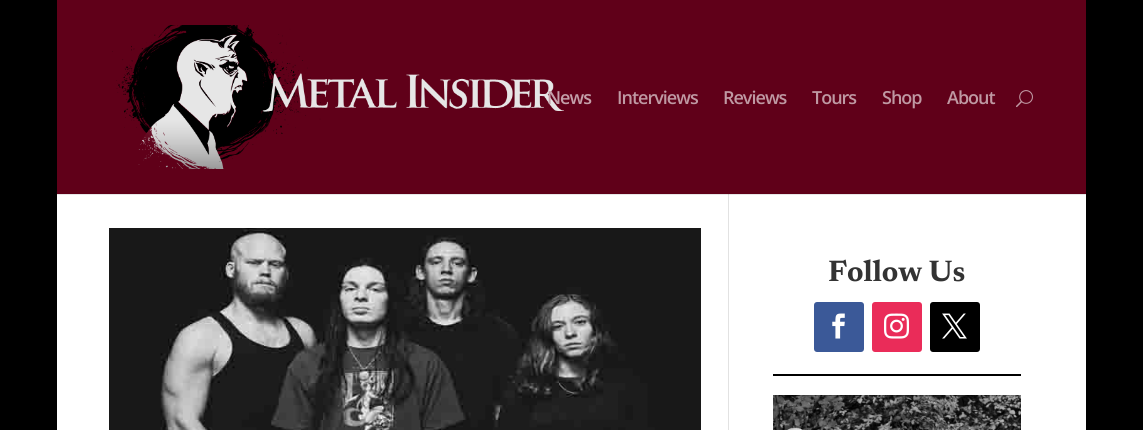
import math
import cairo

surface = cairo.ImageSurface(cairo.Format.RGB24, 1143, 430)
ctx = cairo.Context(surface)
options = cairo.FontOptions()
options.set_hint_metrics(cairo.HintMetrics.OFF)
options.set_hint_style(cairo.HintStyle.NONE)
ctx.set_font_options(options)
ctx.set_miter_limit(4)


def ink(r, g, b):
    ctx.set_source_rgb(r / 255, g / 255, b / 255)


def write(x, y, s, family, size, color, bold=False, italic=False):
    ctx.select_font_face(family, cairo.FontSlant.ITALIC if italic else cairo.FontSlant.NORMAL, cairo.FontWeight.BOLD if bold else cairo.FontWeight.NORMAL)
    ctx.set_font_size(size)
    ink(*color)
    ctx.move_to(x, y)
    ctx.show_text(s)


def write_spaced(x, y, s, letter, word):
    ctx.move_to(x, y)
    for ch in s:
        ctx.show_text(ch)
        ctx.rel_move_to(letter + word * (ch == ' '), 0)


def block(x, y, w, h, *color):
    ink(*color)
    ctx.rectangle(x, y, w, h)
    ctx.fill()


def round_path(x, y, w, h, r):
    ctx.new_sub_path()
    for i, (u, v) in enumerate([(x + w - r, y + h - r), (x + r, y + h - r), (x + r, y + r), (x + w - r, y + r)]):
        ctx.arc(u, v, r, i * math.pi / 2, (i + 1) * math.pi / 2)
    ctx.close_path()


def paste(path, x, y, w, h):
    ctx.save()
    ctx.set_source_surface(cairo.ImageSurface.create_from_png(path), x, y)
    ctx.rectangle(x, y, w, h)
    ctx.fill()
    ctx.restore()


s1 = dict(family="Newsreader", size=30, color=(51, 51, 51), bold=True)

ink(0, 0, 0)
ctx.paint()
block(57, 0, 1029, 194, 96, 0, 25)
paste("pic1.png", 112, 25, 452, 144)
ctx.select_font_face("Open Sans SemiBold")
ctx.set_font_size(18)
ink(196, 160, 170)
write_spaced(547, 104, "News", -1, 0)
ink(191, 153, 163)
write_spaced(617, 104, "Interviews", -1, 0)
write_spaced(723, 104, "Reviews", -1, 0)
write_spaced(812, 104, "Tours", -1, 0)
write_spaced(882, 104, "Shop", -1, 0)
write_spaced(947, 104, "About", -1, 0)
paste("pic2.png", 1016, 90, 17, 18)
block(57, 195, 1029, 235, 255, 255, 255)
block(57, 194, 1029, 1, 230, 230, 230)
block(728, 195, 1, 235, 226, 226, 226)
block(728, 194, 1, 1, 203, 203, 203)
paste("pic3.png", 109, 228, 592, 202)
write(828, 281, "Follow Us", **s1)
ink(59, 89, 152)
round_path(814, 302, 50, 50, 3)
ctx.fill()
paste("pic4.png", 832, 313, 13, 26)
ink(234, 44, 89)
round_path(872, 302, 50, 50, 3)
ctx.fill()
paste("pic5.png", 884, 313, 25, 26)
ink(0, 0, 0)
round_path(930, 302, 50, 50, 3)
ctx.fill()
paste("pic6.png", 942, 313, 25, 26)
block(773, 374, 248, 2, 0, 0, 0)
paste("pic7.png", 773, 395, 248, 35)
surface.write_to_png("screenshot.png")
